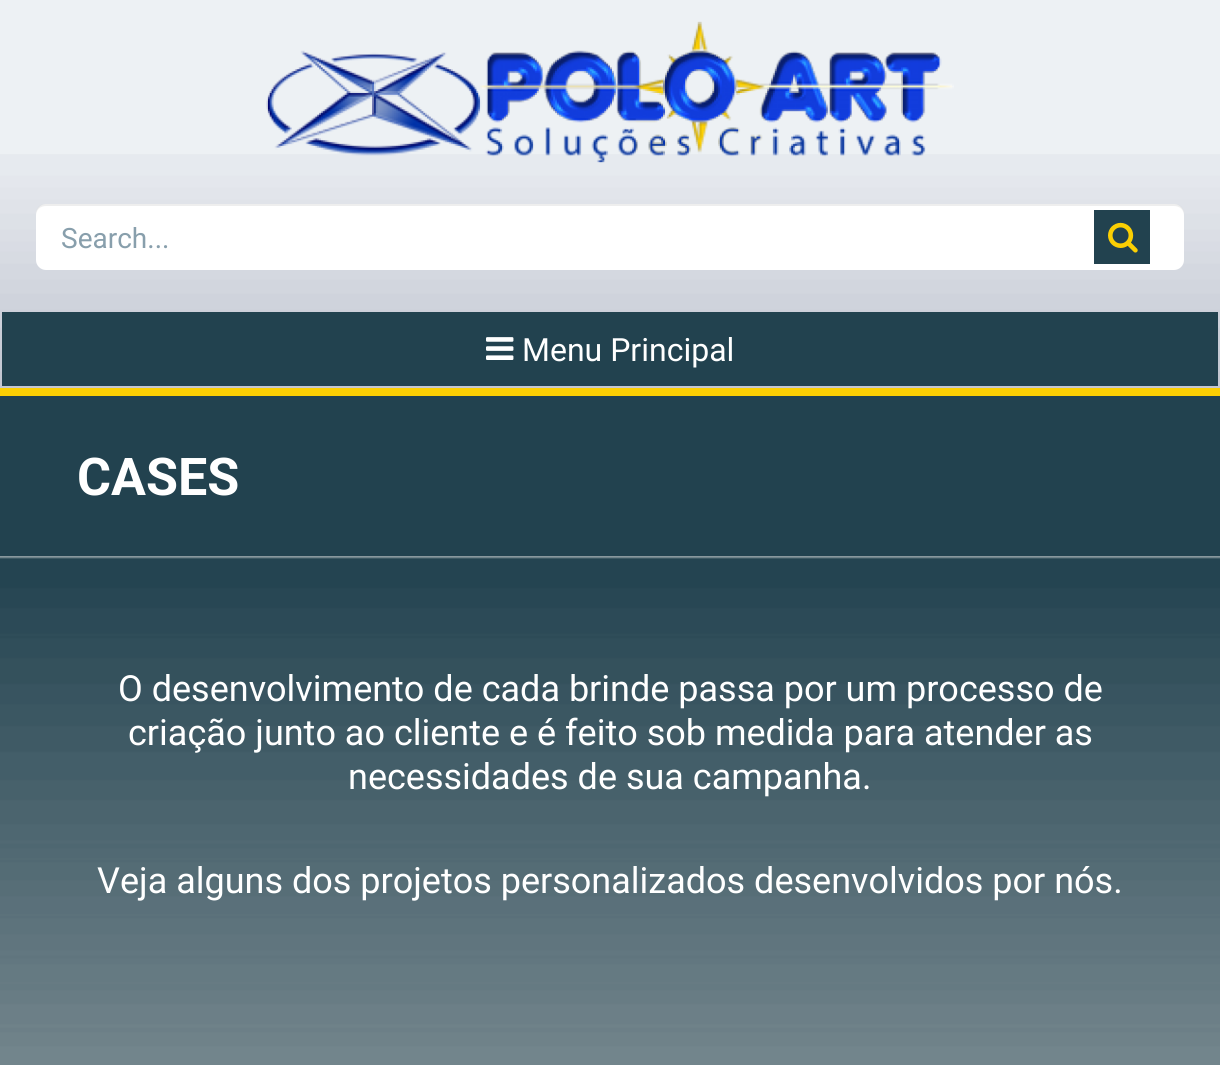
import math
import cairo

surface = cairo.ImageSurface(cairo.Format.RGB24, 1220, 1065)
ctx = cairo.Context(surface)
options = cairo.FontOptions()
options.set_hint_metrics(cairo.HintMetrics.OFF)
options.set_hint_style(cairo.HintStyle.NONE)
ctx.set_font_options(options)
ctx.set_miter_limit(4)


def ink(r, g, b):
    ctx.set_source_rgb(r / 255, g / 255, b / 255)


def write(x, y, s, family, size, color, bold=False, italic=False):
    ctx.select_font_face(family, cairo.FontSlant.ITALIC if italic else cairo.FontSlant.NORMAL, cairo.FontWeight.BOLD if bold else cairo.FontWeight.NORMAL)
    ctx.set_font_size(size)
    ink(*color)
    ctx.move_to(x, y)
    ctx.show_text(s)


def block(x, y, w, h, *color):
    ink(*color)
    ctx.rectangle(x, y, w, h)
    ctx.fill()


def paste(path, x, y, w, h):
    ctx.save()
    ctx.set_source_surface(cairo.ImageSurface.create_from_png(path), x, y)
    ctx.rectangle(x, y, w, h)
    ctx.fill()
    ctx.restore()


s1 = dict(family="Roboto", size=28, color=(136, 159, 172))
s2 = dict(family="Roboto", size=32, color=(255, 255, 255))
s3 = dict(family="Roboto", size=52, color=(255, 255, 255), bold=True)
s4 = dict(family="Roboto", size=36, color=(255, 255, 255))

ink(34, 66, 79)
ctx.paint()
block(0, 0, 1220, 154, 237, 241, 244)
paste("pic1.png", 0, 154, 1220, 234)
block(0, 388, 1220, 8, 251, 207, 3)
paste("pic2.png", 266, 21, 688, 142)
ink(255, 255, 255)
ctx.new_path()
ctx.move_to(46, 204)
ctx.line_to(1068, 204)
ctx.line_to(1068, 270)
ctx.line_to(46, 270)
ctx.curve_to(40.5, 270, 36, 265.5, 36, 260)
ctx.line_to(36, 214)
ctx.curve_to(36, 208.5, 40.5, 204, 46, 204)
ctx.close_path()
ctx.fill()
ctx.set_source_rgba(0, 0, 0, 0.07)
ctx.new_path()
ctx.move_to(46, 206)
ctx.line_to(1068, 206)
ctx.line_to(1068, 204)
ctx.line_to(46, 204)
ctx.curve_to(40, 204, 36, 208, 36, 214)
ctx.line_to(36, 216)
ctx.curve_to(36, 210, 40, 206, 46, 206)
ctx.close_path()
ctx.fill()
write(61, 248, "Search...", **s1)
ink(255, 255, 255)
ctx.new_path()
ctx.move_to(1068, 204)
ctx.line_to(1174, 204)
ctx.curve_to(1179.5, 204, 1184, 208.5, 1184, 214)
ctx.line_to(1184, 260)
ctx.curve_to(1184, 265.5, 1179.5, 270, 1174, 270)
ctx.line_to(1068, 270)
ctx.close_path()
ctx.fill()
ctx.set_source_rgba(0, 0, 0, 0.07)
ctx.new_path()
ctx.move_to(1068, 206)
ctx.line_to(1174, 206)
ctx.curve_to(1180, 206, 1184, 210, 1184, 216)
ctx.line_to(1184, 214)
ctx.curve_to(1184, 208, 1180, 204, 1174, 204)
ctx.line_to(1068, 204)
ctx.close_path()
ctx.fill()
block(1094, 210, 56, 54, 34, 66, 79)
paste("pic3.png", 1108, 222, 30, 31)
block(2, 312, 1216, 74, 34, 66, 79)
paste("pic4.png", 486, 337, 28, 23)
write(522, 361, "Menu Principal", **s2)
write(77, 495, "CASES", **s3)
paste("pic5.png", 0, 556, 1220, 509)
write(118, 701, "O desenvolvimento de cada brinde passa por um processo de", **s4)
write(128, 745, "criação junto ao cliente e é feito sob medida para atender as", **s4)
write(348, 789, "necessidades de sua campanha.", **s4)
write(97, 893, "Veja alguns dos projetos personalizados desenvolvidos por nós.", **s4)
surface.write_to_png("screenshot.png")
